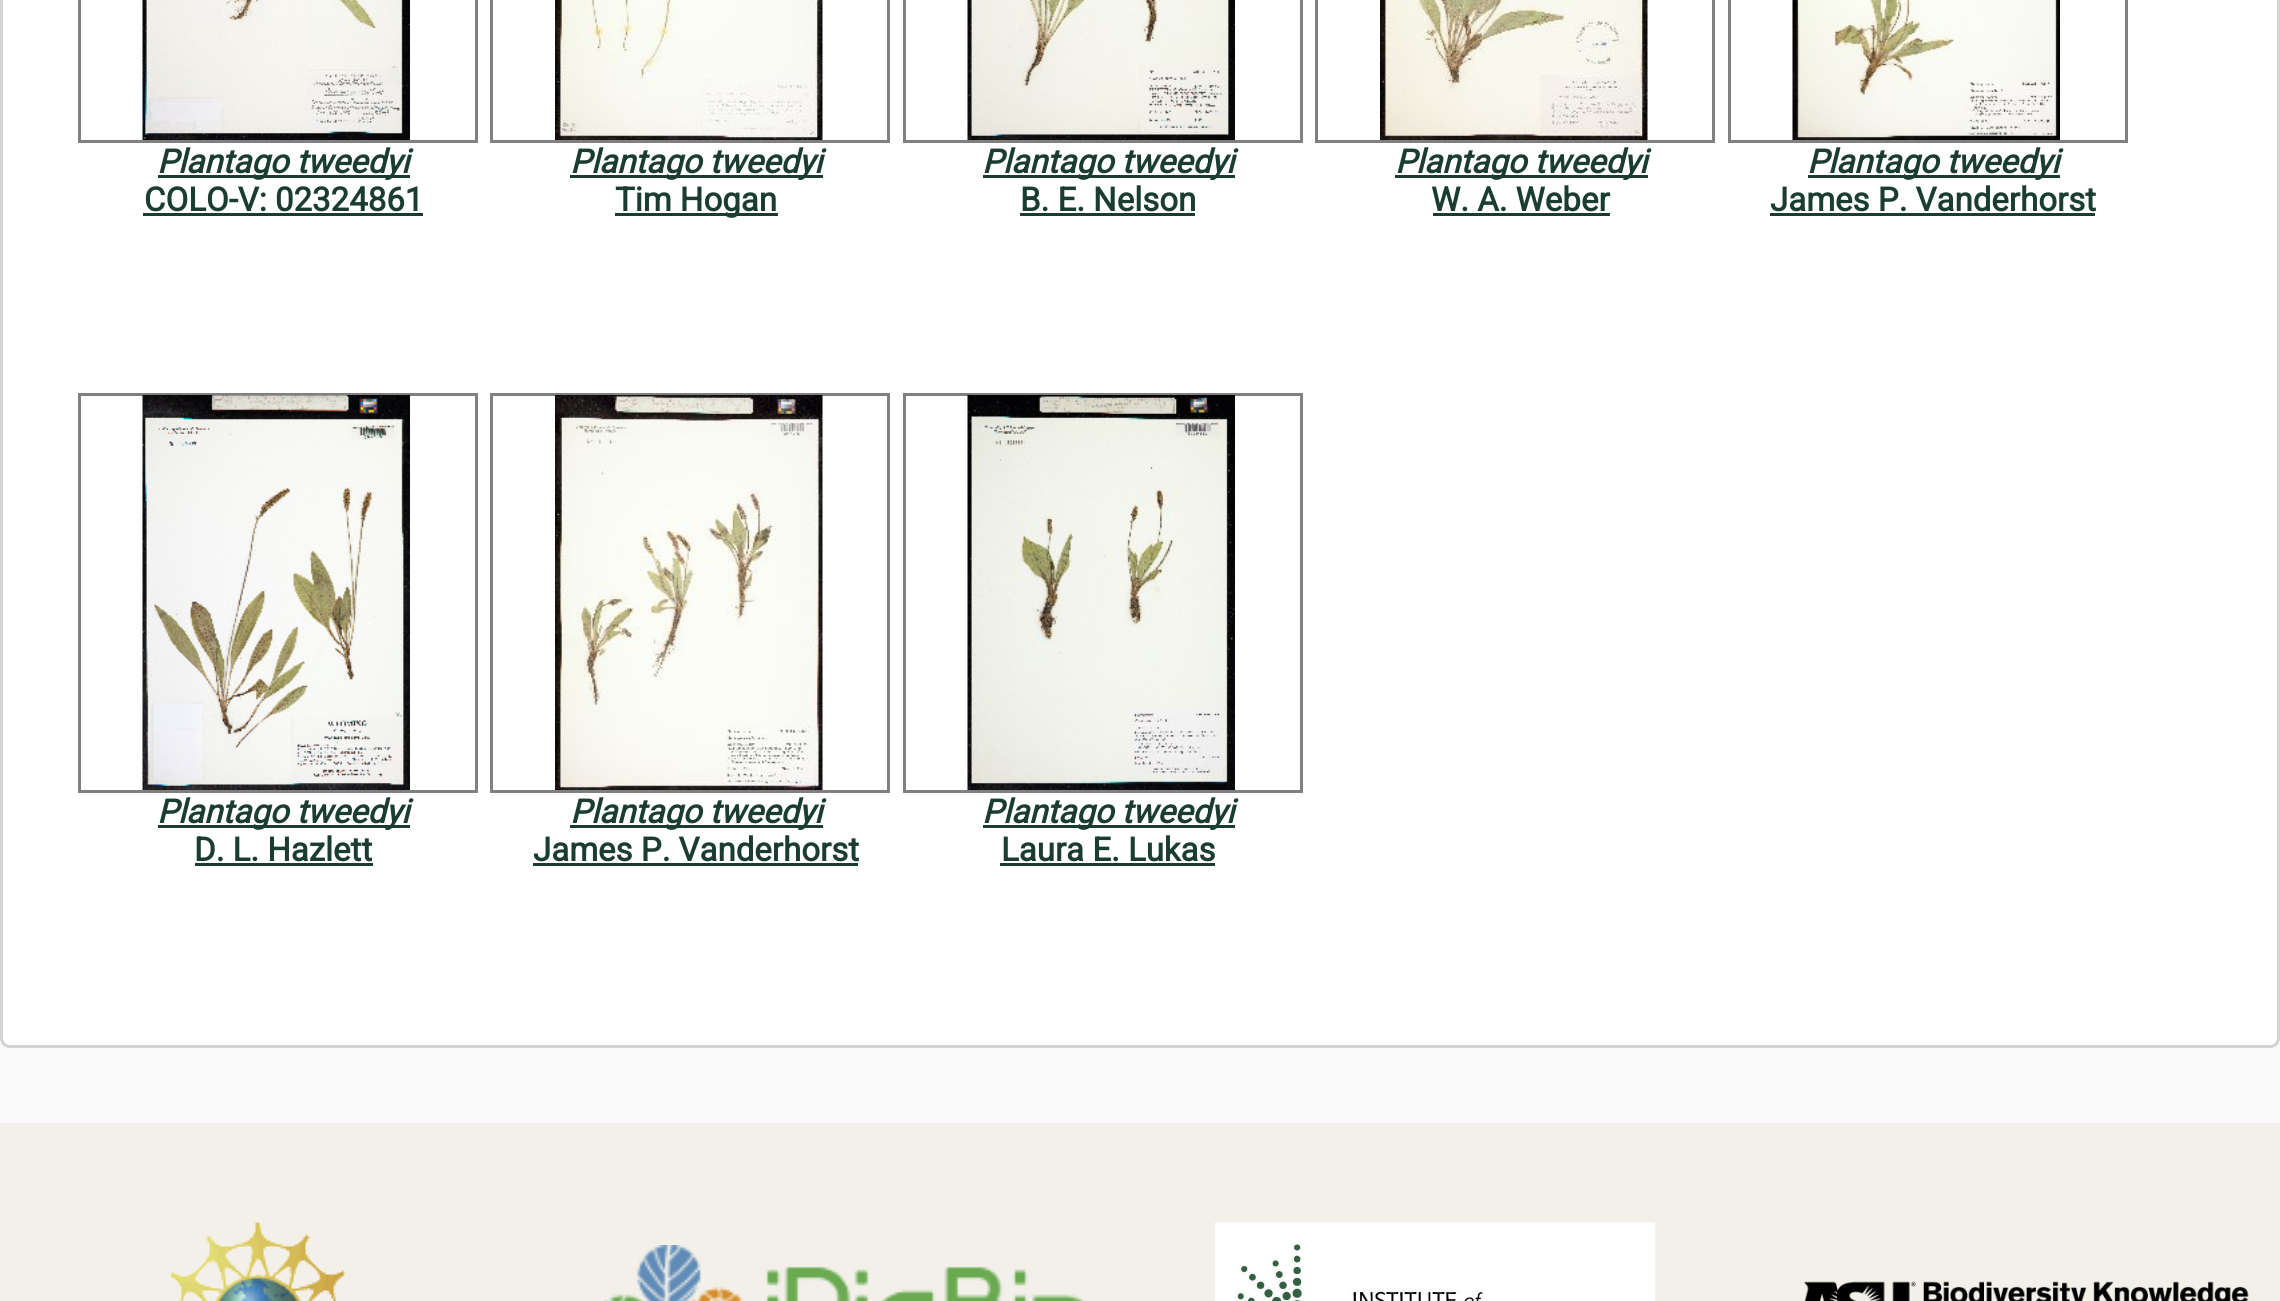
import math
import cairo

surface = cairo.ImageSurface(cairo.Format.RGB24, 2280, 1301)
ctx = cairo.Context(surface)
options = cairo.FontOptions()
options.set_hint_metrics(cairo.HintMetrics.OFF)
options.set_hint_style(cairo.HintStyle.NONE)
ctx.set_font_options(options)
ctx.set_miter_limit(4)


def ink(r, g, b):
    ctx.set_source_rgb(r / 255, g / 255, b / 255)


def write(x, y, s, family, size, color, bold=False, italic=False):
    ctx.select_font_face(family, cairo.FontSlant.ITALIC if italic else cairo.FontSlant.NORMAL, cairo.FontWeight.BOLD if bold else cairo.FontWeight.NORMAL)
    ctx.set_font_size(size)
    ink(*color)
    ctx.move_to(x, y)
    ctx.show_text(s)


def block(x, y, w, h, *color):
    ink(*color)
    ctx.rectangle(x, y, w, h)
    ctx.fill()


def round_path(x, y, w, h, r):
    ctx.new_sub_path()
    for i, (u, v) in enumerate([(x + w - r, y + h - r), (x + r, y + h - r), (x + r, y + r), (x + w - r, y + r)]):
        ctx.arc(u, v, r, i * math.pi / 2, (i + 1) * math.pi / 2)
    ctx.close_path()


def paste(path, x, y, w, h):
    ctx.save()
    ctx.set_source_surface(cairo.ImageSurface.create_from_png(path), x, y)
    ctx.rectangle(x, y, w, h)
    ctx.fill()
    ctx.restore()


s1 = dict(family="Roboto", size=33, color=(27, 61, 47), bold=True, italic=True)
s2 = dict(family="Roboto", size=33, color=(27, 61, 47), bold=True)

ink(250, 250, 250)
ctx.paint()
ink(255, 255, 255)
round_path(1.5, -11.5, 2277, 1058, 8.5)
ctx.fill_preserve()
ink(211, 211, 211)
ctx.set_line_width(3)
ctx.stroke()
ctx.rectangle(79.5, -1.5, 397, 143)
ink(128, 128, 128)
ctx.stroke()
paste("pic1.png", 142, 0, 268, 140)
block(158, 175, 252, 3, 27, 61, 47)
write(157, 173, "Plantago tweedyi", **s1)
write(144, 211, "COLO-V: 02324861", **s2)
block(143, 213, 280, 3, 27, 61, 47)
ctx.rectangle(491.5, -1.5, 397, 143)
ink(128, 128, 128)
ctx.stroke()
paste("pic2.png", 555, 0, 268, 140)
block(570, 175, 253, 3, 27, 61, 47)
write(570, 173, "Plantago tweedyi", **s1)
block(615, 213, 163, 3, 27, 61, 47)
write(615, 211, "Tim Hogan", **s2)
ctx.rectangle(904.5, -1.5, 397, 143)
ink(128, 128, 128)
ctx.stroke()
paste("pic3.png", 967, 0, 268, 140)
block(983, 175, 252, 3, 27, 61, 47)
write(982, 173, "Plantago tweedyi", **s1)
write(1020, 211, "B. E. Nelson", **s2)
block(1020, 213, 175, 3, 27, 61, 47)
ctx.rectangle(1316.5, -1.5, 397, 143)
ink(128, 128, 128)
ctx.stroke()
paste("pic4.png", 1380, 0, 268, 140)
block(1395, 175, 253, 3, 27, 61, 47)
write(1395, 173, "Plantago tweedyi", **s1)
write(1431, 211, "W. A. Weber", **s2)
block(1433, 213, 177, 3, 27, 61, 47)
ctx.rectangle(1729.5, -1.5, 397, 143)
ink(128, 128, 128)
ctx.stroke()
paste("pic5.png", 1792, 0, 268, 140)
block(1808, 175, 252, 3, 27, 61, 47)
write(1807, 173, "Plantago tweedyi", **s1)
write(1770, 211, "James P. Vanderhorst", **s2)
block(1770, 213, 325, 3, 27, 61, 47)
ctx.rectangle(79.5, 394.5, 397, 397)
ink(128, 128, 128)
ctx.stroke()
paste("pic6.png", 142, 395, 268, 395)
block(158, 825, 252, 3, 27, 61, 47)
write(157, 823, "Plantago tweedyi", **s1)
write(194, 861, "D. L. Hazlett", **s2)
block(195, 863, 178, 3, 27, 61, 47)
ctx.rectangle(491.5, 394.5, 397, 397)
ink(128, 128, 128)
ctx.stroke()
paste("pic7.png", 555, 395, 268, 395)
block(570, 825, 253, 3, 27, 61, 47)
write(570, 823, "Plantago tweedyi", **s1)
write(533, 861, "James P. Vanderhorst", **s2)
block(533, 863, 325, 3, 27, 61, 47)
ctx.rectangle(904.5, 394.5, 397, 397)
ink(128, 128, 128)
ctx.stroke()
paste("pic8.png", 967, 395, 268, 395)
block(983, 825, 252, 3, 27, 61, 47)
write(982, 823, "Plantago tweedyi", **s1)
write(1001, 861, "Laura E. Lukas", **s2)
block(1000, 863, 215, 3, 27, 61, 47)
block(0, 1123, 2280, 178, 242, 240, 233)
paste("pic9.png", 169, 1222, 177, 79)
paste("pic10.png", 604, 1245, 480, 56)
paste("pic11.png", 1215, 1222, 440, 79)
paste("pic12.png", 1804, 1281, 445, 20)
surface.write_to_png("screenshot.png")
